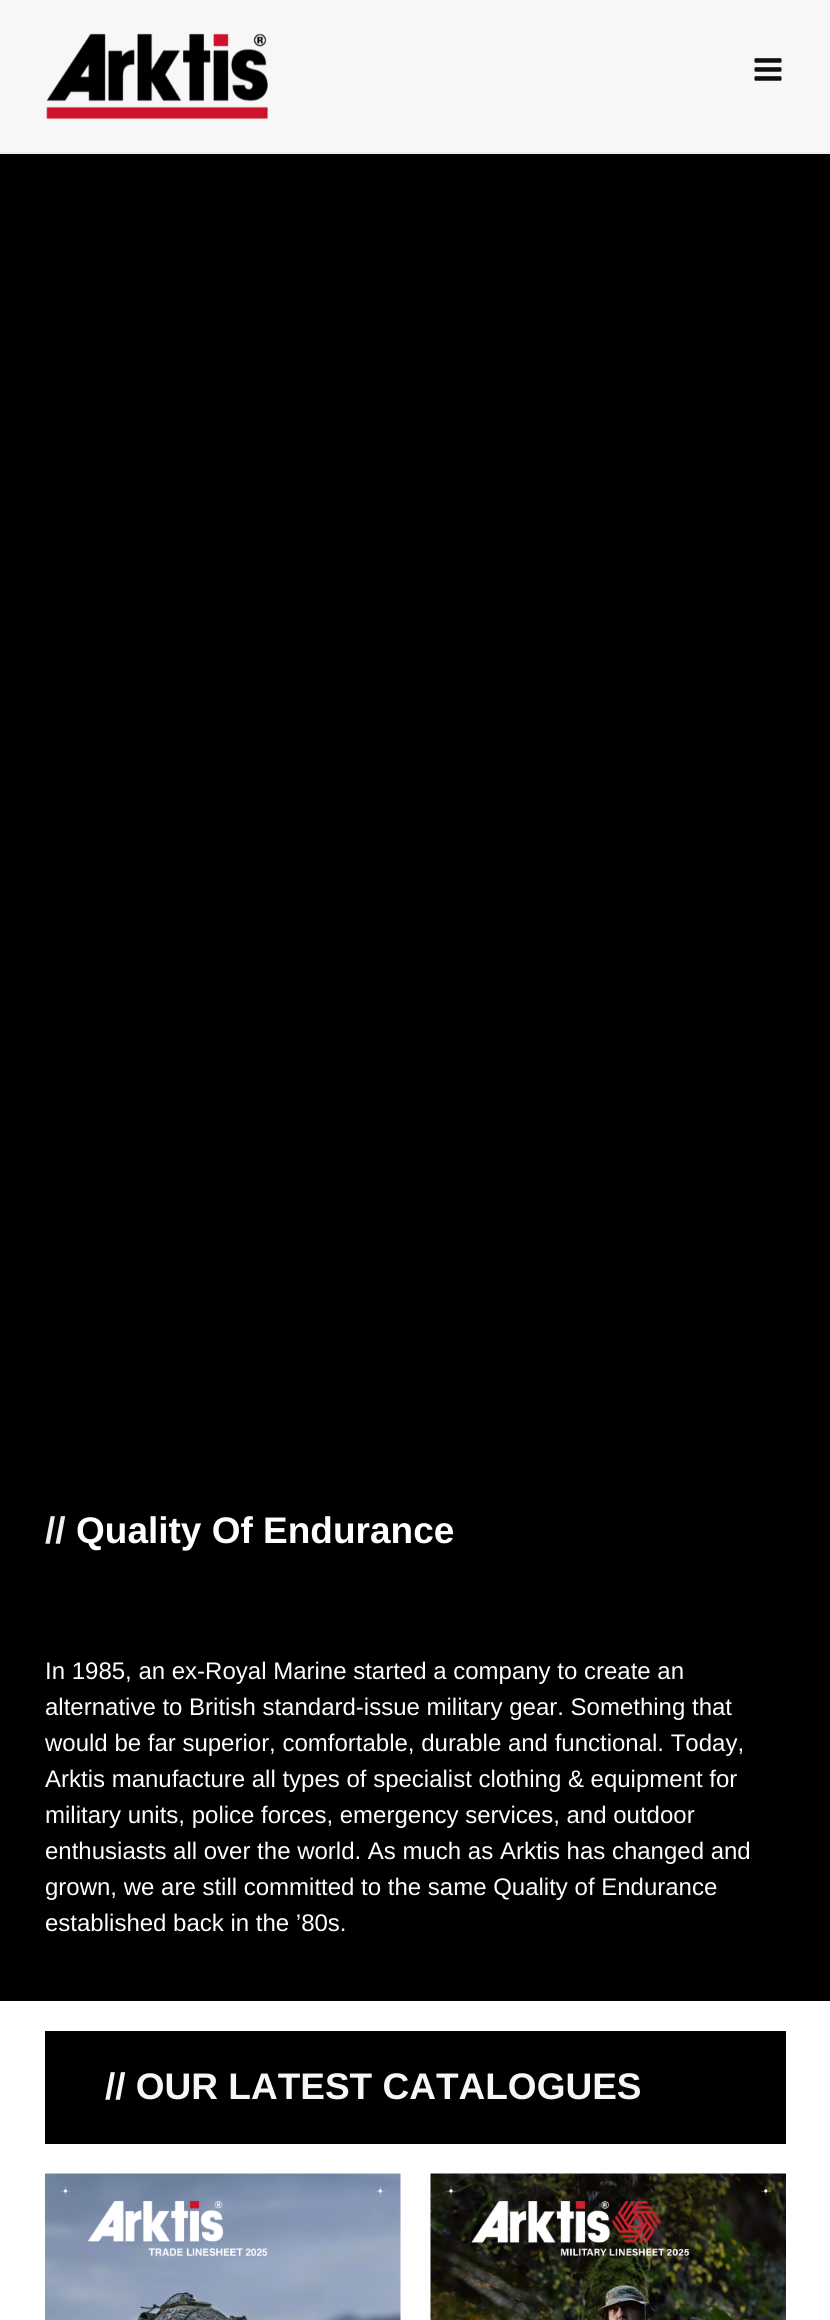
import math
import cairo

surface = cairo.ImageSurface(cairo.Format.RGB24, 830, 2320)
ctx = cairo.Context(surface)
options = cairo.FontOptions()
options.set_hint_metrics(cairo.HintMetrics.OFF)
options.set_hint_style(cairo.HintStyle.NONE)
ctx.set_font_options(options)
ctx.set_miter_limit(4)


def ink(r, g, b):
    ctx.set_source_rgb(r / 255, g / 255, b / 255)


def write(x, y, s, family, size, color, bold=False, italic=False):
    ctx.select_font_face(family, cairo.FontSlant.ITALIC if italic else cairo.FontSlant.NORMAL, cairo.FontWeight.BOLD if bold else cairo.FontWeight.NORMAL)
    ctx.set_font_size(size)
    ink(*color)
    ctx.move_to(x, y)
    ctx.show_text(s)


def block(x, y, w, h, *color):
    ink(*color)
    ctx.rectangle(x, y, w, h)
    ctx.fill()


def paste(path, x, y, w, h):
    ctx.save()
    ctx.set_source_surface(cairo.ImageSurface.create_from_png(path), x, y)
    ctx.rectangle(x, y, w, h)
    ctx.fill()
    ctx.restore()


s1 = dict(family="Liberation Sans", size=37, color=(239, 239, 239), bold=True)
s2 = dict(family="Liberation Sans", size=37, color=(255, 255, 255), bold=True)
s3 = dict(family="Liberation Sans", size=24, color=(255, 255, 255))
s4 = dict(family="Liberation Sans", size=37, color=(247, 247, 247), bold=True)

ink(255, 255, 255)
ctx.paint()
block(0, 0, 830, 152, 247, 247, 247)
block(0, 152, 830, 2, 238, 238, 238)
paste("pic1.png", 46, 33, 222, 87)
paste("pic2.png", 754, 58, 28, 23)
block(0, 154, 830, 1847, 0, 0, 0)
write(45, 1543, "//", **s1)
write(76, 1543, "Quality Of Endurance", **s2)
write(45, 1679, "In 1985, an ex-Royal Marine started a company to create an", **s3)
write(45, 1715, "alternative to British standard-issue military gear. Something that", **s3)
write(45, 1751, "would be far superior, comfortable, durable and functional. Today,", **s3)
write(45, 1787, "Arktis manufacture all types of specialist clothing & equipment for", **s3)
write(45, 1823, "military units, police forces, emergency services, and outdoor", **s3)
write(45, 1859, "enthusiasts all over the world. As much as Arktis has changed and", **s3)
write(45, 1895, "grown, we are still committed to the same Quality of Endurance", **s3)
write(45, 1931, "established back in the ’80s.", **s3)
block(45, 2031, 741, 113, 0, 0, 0)
write(105, 2099, "// OUR LATEST CATALOGUES", **s4)
paste("pic3.png", 45, 2173, 356, 147)
paste("pic4.png", 430, 2173, 356, 147)
surface.write_to_png("screenshot.png")
